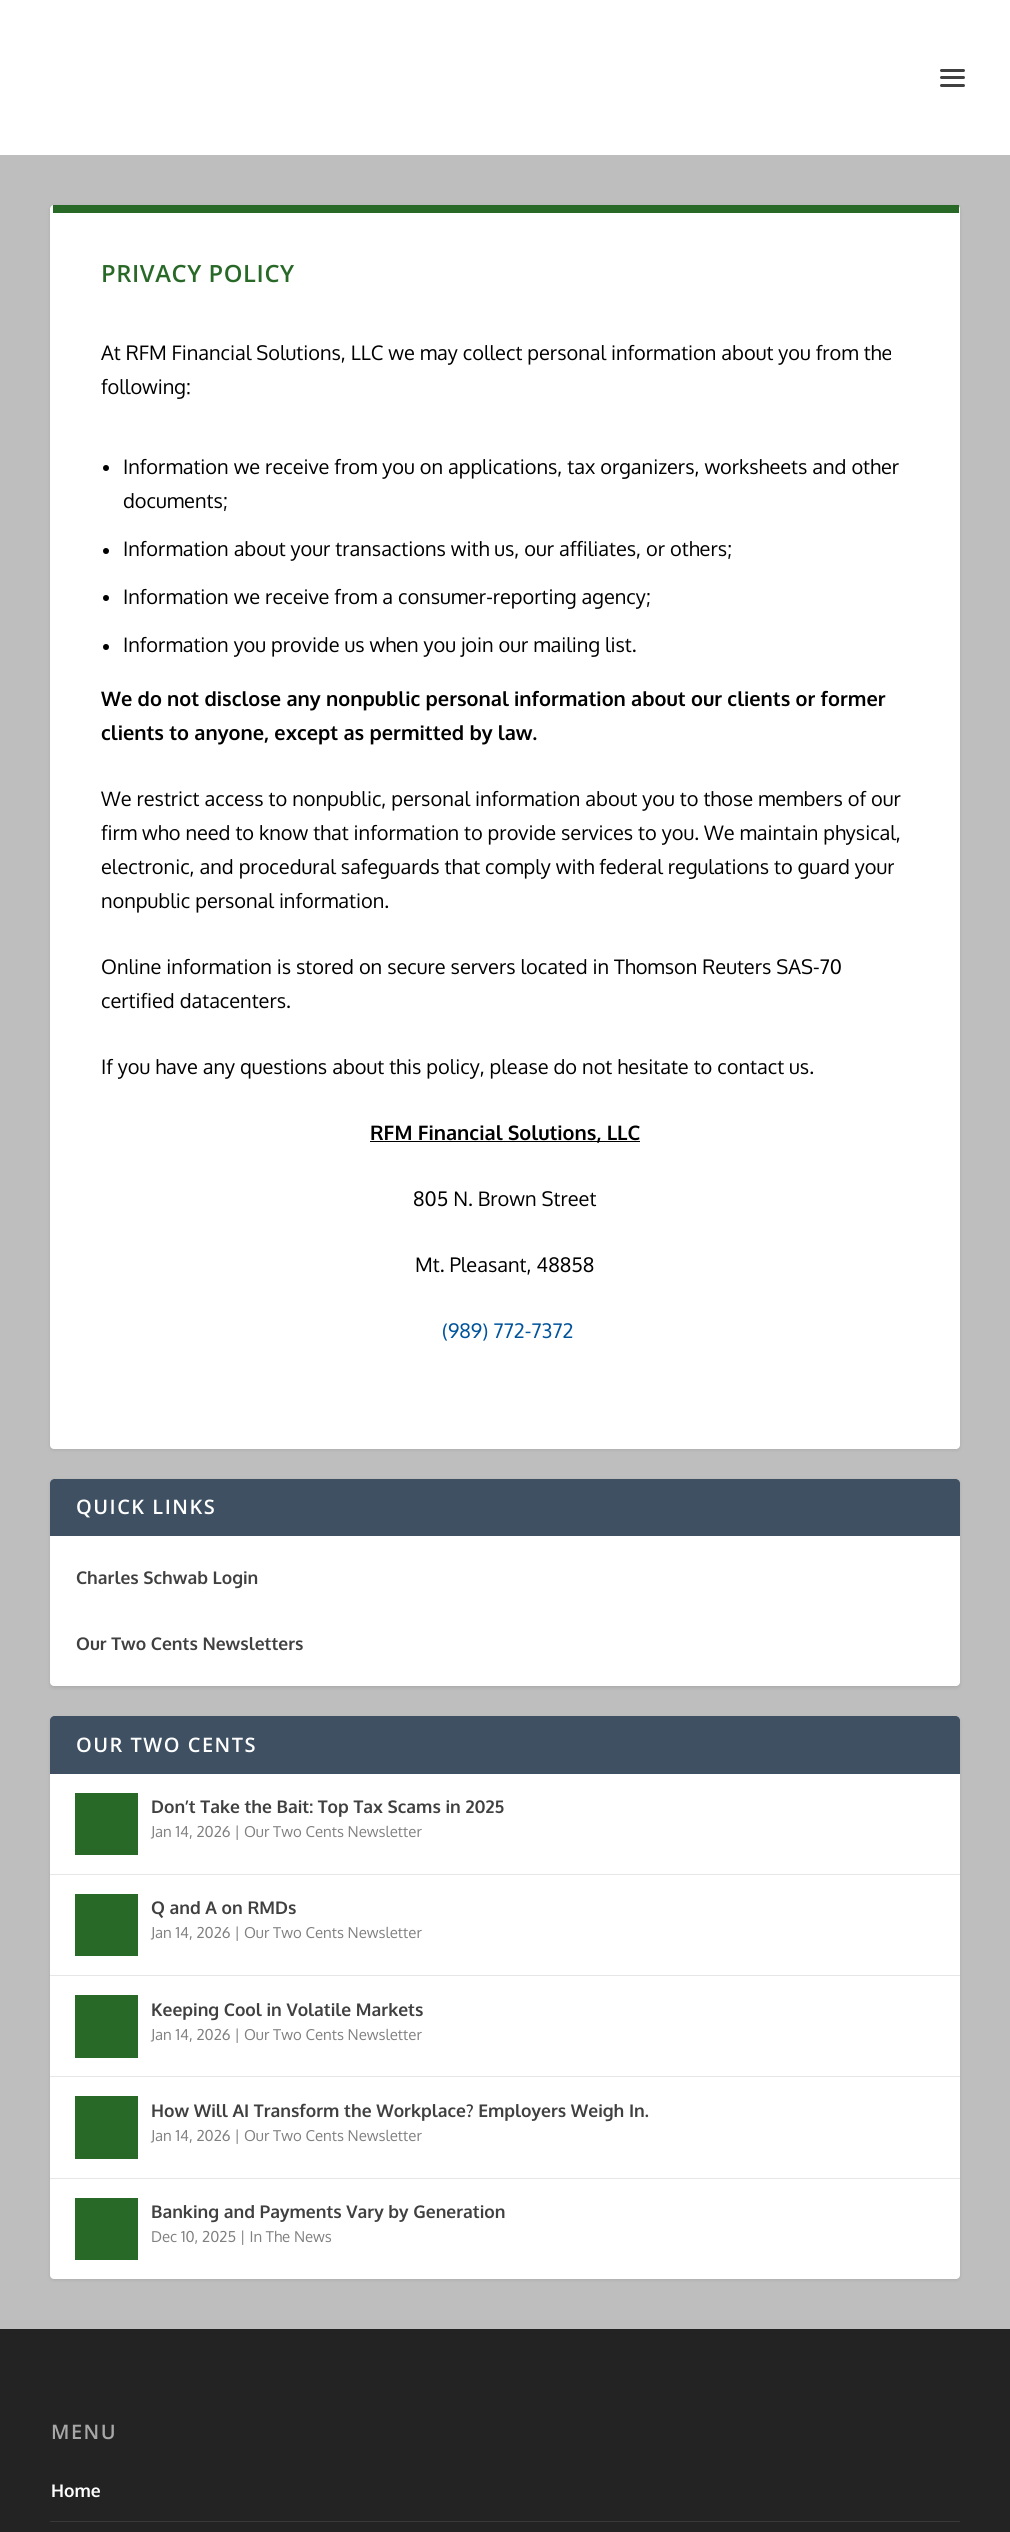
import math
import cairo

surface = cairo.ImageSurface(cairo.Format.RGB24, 1010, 2532)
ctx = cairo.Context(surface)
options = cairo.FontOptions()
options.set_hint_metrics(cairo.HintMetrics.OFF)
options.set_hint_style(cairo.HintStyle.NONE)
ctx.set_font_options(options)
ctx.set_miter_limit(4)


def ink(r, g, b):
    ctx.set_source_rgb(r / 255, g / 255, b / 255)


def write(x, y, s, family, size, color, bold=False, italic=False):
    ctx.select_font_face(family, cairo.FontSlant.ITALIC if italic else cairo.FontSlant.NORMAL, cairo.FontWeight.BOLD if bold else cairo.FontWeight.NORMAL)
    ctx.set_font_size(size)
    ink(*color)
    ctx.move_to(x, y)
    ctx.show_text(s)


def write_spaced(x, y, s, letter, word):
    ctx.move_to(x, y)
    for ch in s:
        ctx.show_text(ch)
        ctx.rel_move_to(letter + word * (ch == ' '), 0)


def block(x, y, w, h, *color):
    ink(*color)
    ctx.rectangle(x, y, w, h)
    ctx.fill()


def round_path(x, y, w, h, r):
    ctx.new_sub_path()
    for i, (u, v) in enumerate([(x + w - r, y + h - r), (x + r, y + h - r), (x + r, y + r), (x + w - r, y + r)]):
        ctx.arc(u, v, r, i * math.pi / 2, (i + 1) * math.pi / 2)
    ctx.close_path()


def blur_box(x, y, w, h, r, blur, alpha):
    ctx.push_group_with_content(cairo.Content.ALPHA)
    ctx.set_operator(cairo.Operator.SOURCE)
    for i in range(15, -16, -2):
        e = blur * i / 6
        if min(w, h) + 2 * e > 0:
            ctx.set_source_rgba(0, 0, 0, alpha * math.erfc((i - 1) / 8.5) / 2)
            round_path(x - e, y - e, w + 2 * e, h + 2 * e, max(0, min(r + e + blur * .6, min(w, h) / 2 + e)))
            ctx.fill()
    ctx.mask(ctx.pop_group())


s1 = dict(family="Oxygen", size=20, color=(0, 0, 0))
s2 = dict(family="Oxygen", size=20, color=(0, 0, 0), bold=True)
s3 = dict(family="Oxygen", size=20, color=(0, 83, 155))
s4 = dict(family="Oxygen", size=17.5, color=(64, 64, 64), bold=True)
s5 = dict(family="Oxygen", size=15, color=(128, 128, 128))
s6 = dict(family="Oxygen", size=17.5, color=(255, 255, 255), bold=True)

ink(190, 190, 190)
ctx.paint()
block(0, 0, 1010, 155, 255, 255, 255)
ink(64, 64, 64)
round_path(940, 69, 25, 3, 1.5)
ctx.fill()
round_path(940, 76, 25, 3, 1.5)
ctx.fill()
round_path(940, 84, 25, 3, 1.5)
ctx.fill()
ink(0, 0, 0)
blur_box(50, 206, 910, 1244, 4, 2, 0.1)
ink(255, 255, 255)
round_path(50, 205, 910, 1244, 4)
ctx.fill()
block(53, 205, 906, 8, 41, 105, 40)
ctx.select_font_face("Open Sans SemiBold")
ctx.set_font_size(23.75)
write_spaced(101, 282, "PRIVACY POLICY", 0.6, 0)
write(101, 360, "At RFM Financial Solutions, LLC we may collect personal information about you from the", **s1)
write(101, 394, "following:", **s1)
ctx.new_path()
ctx.arc(106, 468, 3, 0, 2 * math.pi)
ctx.fill()
write(123, 474, "Information we receive from you on applications, tax organizers, worksheets and other", **s1)
write(123, 508, "documents;", **s1)
ctx.new_path()
ctx.arc(106, 551, 3, 0, 2 * math.pi)
ctx.fill()
write(123, 556, "Information about your transactions with us, our affiliates, or others;", **s1)
ctx.new_path()
ctx.arc(106, 598, 3, 0, 2 * math.pi)
ctx.fill()
write(123, 604, "Information we receive from a consumer-reporting agency;", **s1)
ctx.new_path()
ctx.arc(106, 647, 3, 0, 2 * math.pi)
ctx.fill()
write(123, 652, "Information you provide us when you join our mailing list.", **s1)
write(101, 706, "We do not disclose any nonpublic personal information about our clients or former", **s2)
write(101, 740, "clients to anyone, except as permitted by law.", **s2)
write(101, 806, "We restrict access to nonpublic, personal information about you to those members of our", **s1)
write(101, 840, "firm who need to know that information to provide services to you. We maintain physical,", **s1)
write(101, 874, "electronic, and procedural safeguards that comply with federal regulations to guard your", **s1)
write(101, 908, "nonpublic personal information.", **s1)
write(101, 974, "Online information is stored on secure servers located in Thomson Reuters SAS-70", **s1)
write(101, 1008, "certified datacenters.", **s1)
write(101, 1074, "If you have any questions about this policy, please do not hesitate to contact us.", **s1)
block(370, 1141, 270, 1, 0, 0, 0)
write(370, 1140, "RFM Financial Solutions, LLC", **s2)
write(413, 1206, "805 N. Brown Street", **s1)
write(415, 1272, "Mt. Pleasant, 48858", **s1)
write(442, 1338, "(989) 772-7372", **s3)
ink(0, 0, 0)
blur_box(50, 1480, 910, 208, 4, 2, 0.1)
ink(255, 255, 255)
round_path(50, 1479, 910, 207, 4)
ctx.fill()
ink(62, 80, 98)
ctx.new_path()
ctx.move_to(54, 1479)
ctx.line_to(956, 1479)
ctx.curve_to(958, 1479, 960, 1481, 960, 1483)
ctx.line_to(960, 1536)
ctx.line_to(50, 1536)
ctx.line_to(50, 1483)
ctx.curve_to(50, 1481, 52, 1479, 54, 1479)
ctx.close_path()
ctx.fill()
ctx.select_font_face("Open Sans SemiBold")
ink(255, 255, 255)
write_spaced(76, 1514, "QUICK LINKS", 1.5, 0)
write(76, 1584, "Charles Schwab Login", **s4)
write(76, 1650, "Our Two Cents Newsletters", **s4)
ink(0, 0, 0)
blur_box(50, 1718, 910, 562, 4, 2, 0.1)
ink(255, 255, 255)
round_path(50, 1716, 910, 563, 4)
ctx.fill()
ink(62, 80, 98)
ctx.new_path()
ctx.move_to(54, 1716)
ctx.line_to(956, 1716)
ctx.curve_to(958, 1716, 960, 1718, 960, 1720)
ctx.line_to(960, 1774)
ctx.line_to(50, 1774)
ctx.line_to(50, 1720)
ctx.curve_to(50, 1718, 52, 1716, 54, 1716)
ctx.close_path()
ctx.fill()
ctx.select_font_face("Open Sans SemiBold")
ctx.set_font_size(20)
ink(255, 255, 255)
write_spaced(76, 1752, "OUR TWO CENTS", 1.5, 0)
block(50, 1874, 910, 1, 230, 230, 230)
block(75, 1793, 63, 62, 41, 105, 40)
write(151, 1813, "Don’t Take the Bait: Top Tax Scams in 2025", **s4)
write(151, 1837, "Jan 14, 2026 | Our Two Cents Newsletter", **s5)
block(50, 1975, 910, 1, 230, 230, 230)
block(75, 1894, 63, 62, 41, 105, 40)
write(151, 1914, "Q and A on RMDs", **s4)
write(151, 1938, "Jan 14, 2026 | Our Two Cents Newsletter", **s5)
block(50, 2076, 910, 1, 230, 230, 230)
block(75, 1995, 63, 63, 41, 105, 40)
write(151, 2016, "Keeping Cool in Volatile Markets", **s4)
write(151, 2040, "Jan 14, 2026 | Our Two Cents Newsletter", **s5)
block(50, 2178, 910, 1, 230, 230, 230)
block(75, 2096, 63, 63, 41, 105, 40)
write(151, 2117, "How Will AI Transform the Workplace? Employers Weigh In.", **s4)
write(151, 2141, "Jan 14, 2026 | Our Two Cents Newsletter", **s5)
block(75, 2198, 63, 62, 41, 105, 40)
write(151, 2218, "Banking and Payments Vary by Generation", **s4)
write(151, 2242, "Dec 10, 2025 | In The News", **s5)
block(0, 2329, 1010, 203, 35, 35, 35)
ctx.select_font_face("Open Sans SemiBold")
ctx.set_font_size(20)
ink(167, 167, 167)
write_spaced(51, 2439, "MENU", 1.5, 0)
block(50, 2521, 910, 1, 57, 57, 57)
write(51, 2497, "Home", **s6)
surface.write_to_png("screenshot.png")
